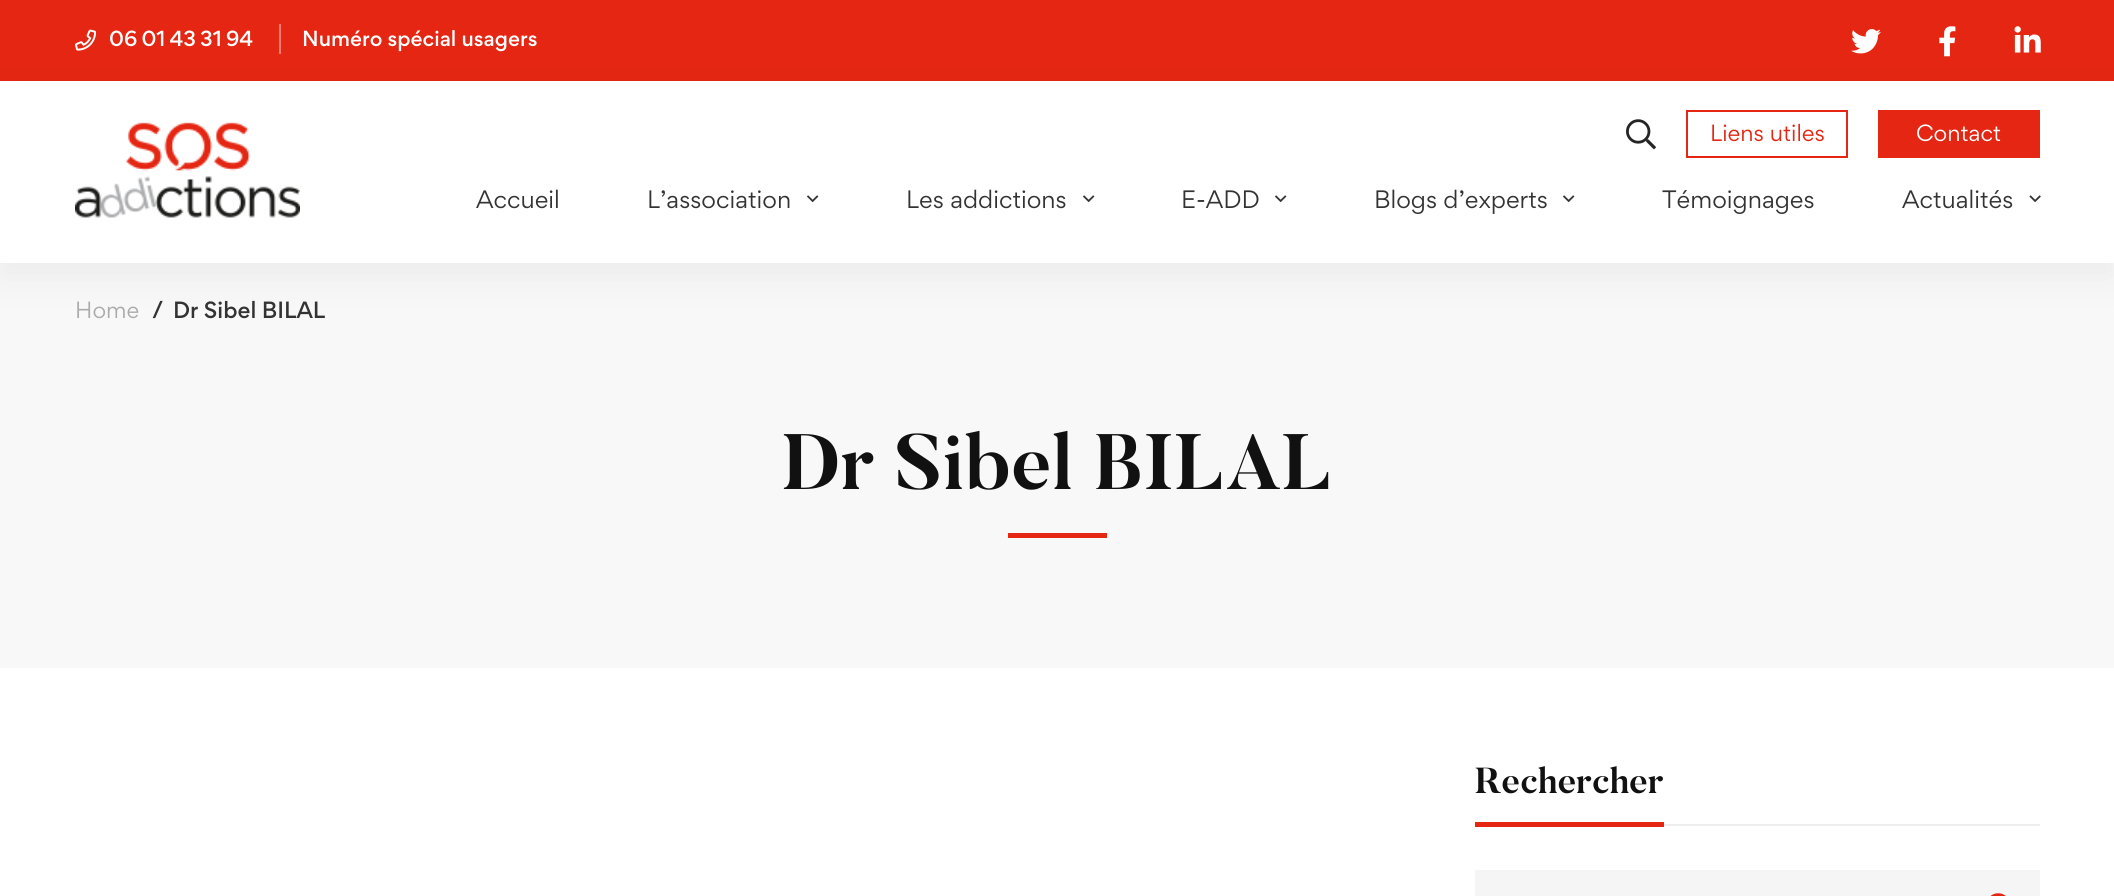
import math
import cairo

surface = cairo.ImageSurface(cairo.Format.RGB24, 2114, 896)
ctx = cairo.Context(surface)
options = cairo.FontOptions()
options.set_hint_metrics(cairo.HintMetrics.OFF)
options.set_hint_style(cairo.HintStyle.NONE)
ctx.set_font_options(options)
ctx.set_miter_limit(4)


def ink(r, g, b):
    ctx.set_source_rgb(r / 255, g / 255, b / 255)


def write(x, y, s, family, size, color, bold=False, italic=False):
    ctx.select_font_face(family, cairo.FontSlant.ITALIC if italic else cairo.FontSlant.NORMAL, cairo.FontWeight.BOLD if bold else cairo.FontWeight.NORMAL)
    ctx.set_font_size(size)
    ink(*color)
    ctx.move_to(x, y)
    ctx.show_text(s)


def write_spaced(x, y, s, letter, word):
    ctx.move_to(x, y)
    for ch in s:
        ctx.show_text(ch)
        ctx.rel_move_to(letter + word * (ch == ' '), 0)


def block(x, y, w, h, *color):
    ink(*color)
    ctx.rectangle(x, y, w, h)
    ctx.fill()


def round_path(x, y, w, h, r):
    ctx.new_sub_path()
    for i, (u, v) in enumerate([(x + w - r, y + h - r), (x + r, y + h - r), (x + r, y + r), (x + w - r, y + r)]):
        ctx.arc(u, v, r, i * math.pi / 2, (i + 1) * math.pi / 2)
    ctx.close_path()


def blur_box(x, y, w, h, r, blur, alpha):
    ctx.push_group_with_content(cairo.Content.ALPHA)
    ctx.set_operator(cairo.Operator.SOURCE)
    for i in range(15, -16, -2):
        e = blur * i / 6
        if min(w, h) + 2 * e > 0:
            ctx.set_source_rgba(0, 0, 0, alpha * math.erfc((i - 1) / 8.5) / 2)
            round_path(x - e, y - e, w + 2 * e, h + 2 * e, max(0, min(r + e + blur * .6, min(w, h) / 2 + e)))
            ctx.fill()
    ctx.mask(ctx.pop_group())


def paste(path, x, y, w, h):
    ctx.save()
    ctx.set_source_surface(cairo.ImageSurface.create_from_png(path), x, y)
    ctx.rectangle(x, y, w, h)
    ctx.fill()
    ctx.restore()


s1 = dict(family="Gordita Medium", size=19.5, color=(255, 255, 255))
s2 = dict(family="Gordita", size=21, color=(228, 38, 19))
s3 = dict(family="Gordita", size=21, color=(255, 255, 255))
s4 = dict(family="Gordita", size=22.5, color=(51, 51, 51))
s5 = dict(family="Gordita", size=21, color=(171, 171, 171))
s6 = dict(family="Gordita Medium", size=21, color=(51, 51, 51))
s7 = dict(family="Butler", size=78, color=(17, 17, 17), bold=True)
s8 = dict(family="Butler", size=36, color=(17, 17, 17), bold=True)

ink(255, 255, 255)
ctx.paint()
block(0, 0, 2114, 81, 228, 38, 18)
paste("pic1.png", 75, 29, 21, 22)
ctx.select_font_face("Gordita Medium")
ctx.set_font_size(19.5)
ink(255, 255, 255)
write_spaced(109, 46, "06 01 43 31 94", 0, -1)
block(279, 24, 2, 30, 239, 125, 113)
write(302, 46, "Numéro spécial usagers", **s1)
paste("pic2.png", 1851, 29, 30, 25)
paste("pic3.png", 1939, 26, 17, 31)
paste("pic4.png", 2014, 26, 27, 27)
block(0, 263, 2114, 405, 248, 248, 248)
ink(0, 0, 0)
blur_box(0, 96, 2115, 182, 0, 19.5, 0.05)
block(0, 81, 2114, 182, 255, 255, 255)
paste("pic5.png", 75, 122, 225, 96)
paste("pic6.png", 1626, 119, 30, 31)
ctx.rectangle(1687, 111, 160, 46)
ink(228, 38, 19)
ctx.stroke()
write(1710, 141, "Liens utiles", **s2)
block(1878, 110, 162, 48, 228, 38, 19)
write(1916, 141, "Contact", **s3)
write(476, 208, "Accueil", **s4)
write(647, 208, "L’association", **s4)
paste("pic7.png", 807, 195, 12, 8)
write(906, 208, "Les addictions", **s4)
paste("pic7.png", 1083, 195, 12, 8)
write(1181, 208, "E-ADD", **s4)
paste("pic7.png", 1275, 195, 12, 8)
write(1374, 208, "Blogs d’experts", **s4)
paste("pic7.png", 1563, 195, 12, 8)
write(1662, 208, "Témoignages", **s4)
write(1902, 208, "Actualités", **s4)
paste("pic8.png", 2029, 195, 12, 8)
write(75, 318, "Home", **s5)
write(152, 318, "/", **s6)
write(173, 318, "Dr Sibel BILAL", **s6)
write(781, 489, "Dr Sibel BILAL", **s7)
block(1008, 533, 99, 5, 228, 38, 19)
block(1664, 824, 376, 2, 238, 238, 238)
write(1475, 793, "Rechercher", **s8)
block(1475, 822, 189, 5, 228, 38, 19)
block(1475, 870, 565, 26, 245, 245, 245)
paste("pic9.png", 1990, 893, 16, 3)
surface.write_to_png("screenshot.png")
